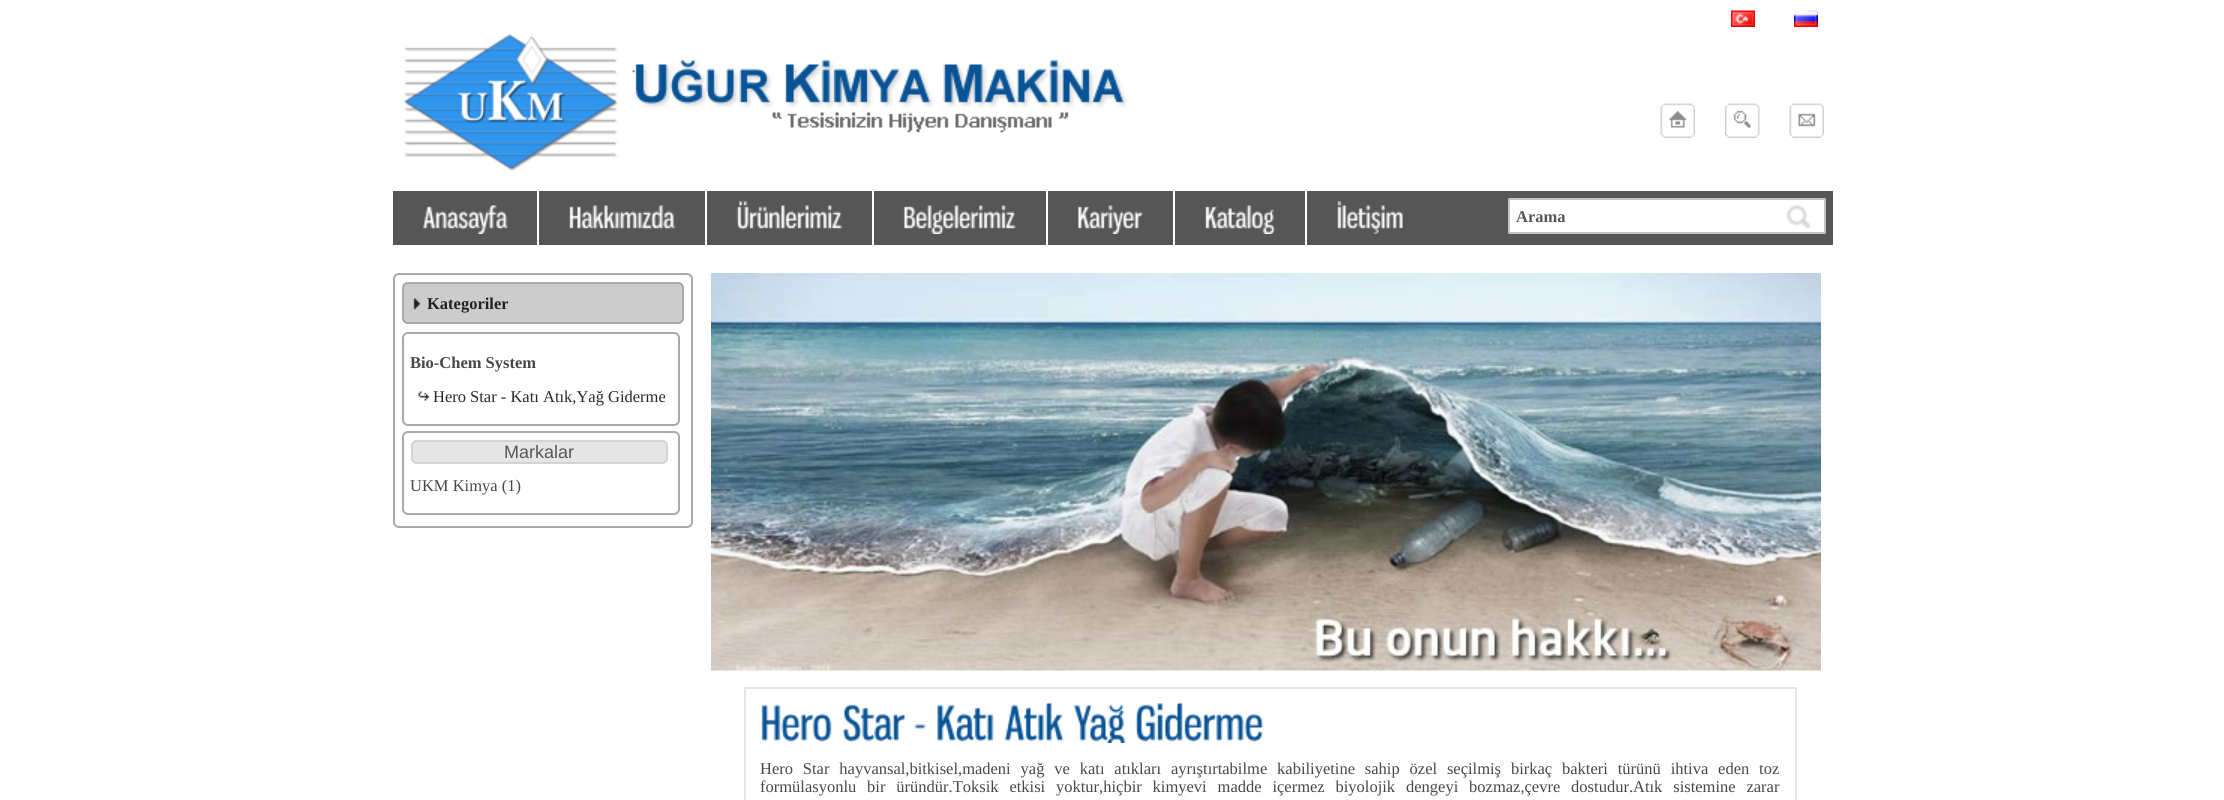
import math
import cairo

surface = cairo.ImageSurface(cairo.Format.RGB24, 2224, 800)
ctx = cairo.Context(surface)
options = cairo.FontOptions()
options.set_hint_metrics(cairo.HintMetrics.OFF)
options.set_hint_style(cairo.HintStyle.NONE)
ctx.set_font_options(options)
ctx.set_miter_limit(4)


def ink(r, g, b):
    ctx.set_source_rgb(r / 255, g / 255, b / 255)


def write(x, y, s, family, size, color, bold=False, italic=False):
    ctx.select_font_face(family, cairo.FontSlant.ITALIC if italic else cairo.FontSlant.NORMAL, cairo.FontWeight.BOLD if bold else cairo.FontWeight.NORMAL)
    ctx.set_font_size(size)
    ink(*color)
    ctx.move_to(x, y)
    ctx.show_text(s)


def write_spaced(x, y, s, letter, word):
    ctx.move_to(x, y)
    for ch in s:
        ctx.show_text(ch)
        ctx.rel_move_to(letter + word * (ch == ' '), 0)


def block(x, y, w, h, *color):
    ink(*color)
    ctx.rectangle(x, y, w, h)
    ctx.fill()


def round_path(x, y, w, h, r):
    ctx.new_sub_path()
    for i, (u, v) in enumerate([(x + w - r, y + h - r), (x + r, y + h - r), (x + r, y + r), (x + w - r, y + r)]):
        ctx.arc(u, v, r, i * math.pi / 2, (i + 1) * math.pi / 2)
    ctx.close_path()


def paste(path, x, y, w, h):
    ctx.save()
    ctx.set_source_surface(cairo.ImageSurface.create_from_png(path), x, y)
    ctx.rectangle(x, y, w, h)
    ctx.fill()
    ctx.restore()


s1 = dict(family="Liberation Serif", size=16.5, color=(87, 87, 87), bold=True)
s2 = dict(family="Liberation Serif", size=16.5, color=(34, 34, 34), bold=True)
s3 = dict(family="Liberation Serif", size=16.5, color=(72, 72, 72), bold=True)
s4 = dict(family="Liberation Serif", size=16.5, color=(40, 40, 40))
s5 = dict(family="Liberation Sans", size=18, color=(87, 87, 87))
s6 = dict(family="Liberation Serif", size=16.5, color=(72, 72, 72))

ink(255, 255, 255)
ctx.paint()
paste("pic1.png", 1731, 10, 24, 17)
paste("pic2.png", 1794, 10, 24, 17)
paste("pic3.png", 404, 34, 724, 137)
paste("pic4.png", 1660, 103, 35, 35)
paste("pic5.png", 1725, 103, 35, 35)
paste("pic6.png", 1789, 103, 35, 35)
block(393, 191, 1440, 54, 86, 86, 86)
block(537, 191, 2, 57, 255, 255, 255)
paste("pic7.png", 422, 205, 86, 29)
block(705, 191, 2, 57, 255, 255, 255)
paste("pic8.png", 569, 205, 107, 24)
block(872, 191, 2, 57, 255, 255, 255)
paste("pic9.png", 736, 201, 106, 29)
block(1046, 191, 2, 57, 255, 255, 255)
paste("pic10.png", 903, 205, 113, 29)
block(1173, 191, 2, 57, 255, 255, 255)
paste("pic11.png", 1077, 205, 67, 29)
block(1305, 191, 2, 57, 255, 255, 255)
paste("pic12.png", 1205, 205, 70, 29)
paste("pic13.png", 1337, 201, 66, 33)
round_path(1509, 199, 316, 34, 0.5)
ctx.fill_preserve()
ink(195, 195, 195)
ctx.stroke()
write(1516, 222, "Arama", **s1)
paste("pic14.png", 1786, 205, 25, 23)
round_path(394, 274, 298, 253, 5)
ink(170, 170, 170)
ctx.stroke()
paste("pic15.png", 402, 282, 282, 42)
round_path(403, 283, 280, 40, 5)
ctx.stroke()
paste("pic16.png", 413, 298, 8, 12)
write(427, 309, "Kategoriler", **s2)
round_path(403, 333, 276, 92, 5)
ink(170, 170, 170)
ctx.stroke()
write(410, 368, "Bio-Chem System", **s3)
paste("pic17.png", 418, 391, 12, 10)
write(433, 402, "Hero Star - Katı Atık,Yağ Giderme", **s4)
round_path(403, 432, 276, 82, 5)
ink(170, 170, 170)
ctx.stroke()
ink(230, 230, 230)
round_path(411, 440, 257, 24, 6)
ctx.fill()
paste("pic18.png", 411, 439, 256, 6)
round_path(412, 441, 255, 22, 5)
ink(211, 211, 211)
ctx.stroke()
write(504, 458, "Markalar", **s5)
write(410, 491, "UKM Kimya (1)", **s6)
paste("pic19.png", 711, 273, 1110, 398)
ctx.rectangle(745, 688, 1051, 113)
ink(229, 229, 229)
ctx.stroke()
paste("pic20.png", 761, 704, 71, 38)
paste("pic21.png", 842, 704, 63, 38)
paste("pic22.png", 914, 724, 12, 6)
paste("pic23.png", 937, 704, 57, 38)
paste("pic24.png", 1004, 702, 60, 40)
paste("pic25.png", 1073, 704, 53, 39)
paste("pic26.png", 1135, 702, 129, 40)
ink(72, 72, 72)
write_spaced(760, 774, "Hero Star hayvansal,bitkisel,madeni yağ ve katı atıkları ayrıştırtabilme kabiliyetine sahip özel seçilmiş birkaç bakteri türünü ihtiva eden toz", 0, 5.75)
write_spaced(760, 792, "formülasyonlu bir üründür.Toksik etkisi yoktur,hiçbir kimyevi madde içermez biyolojik dengeyi bozmaz,çevre dostudur.Atık sistemine zarar", 0, 6.75)
surface.write_to_png("screenshot.png")
